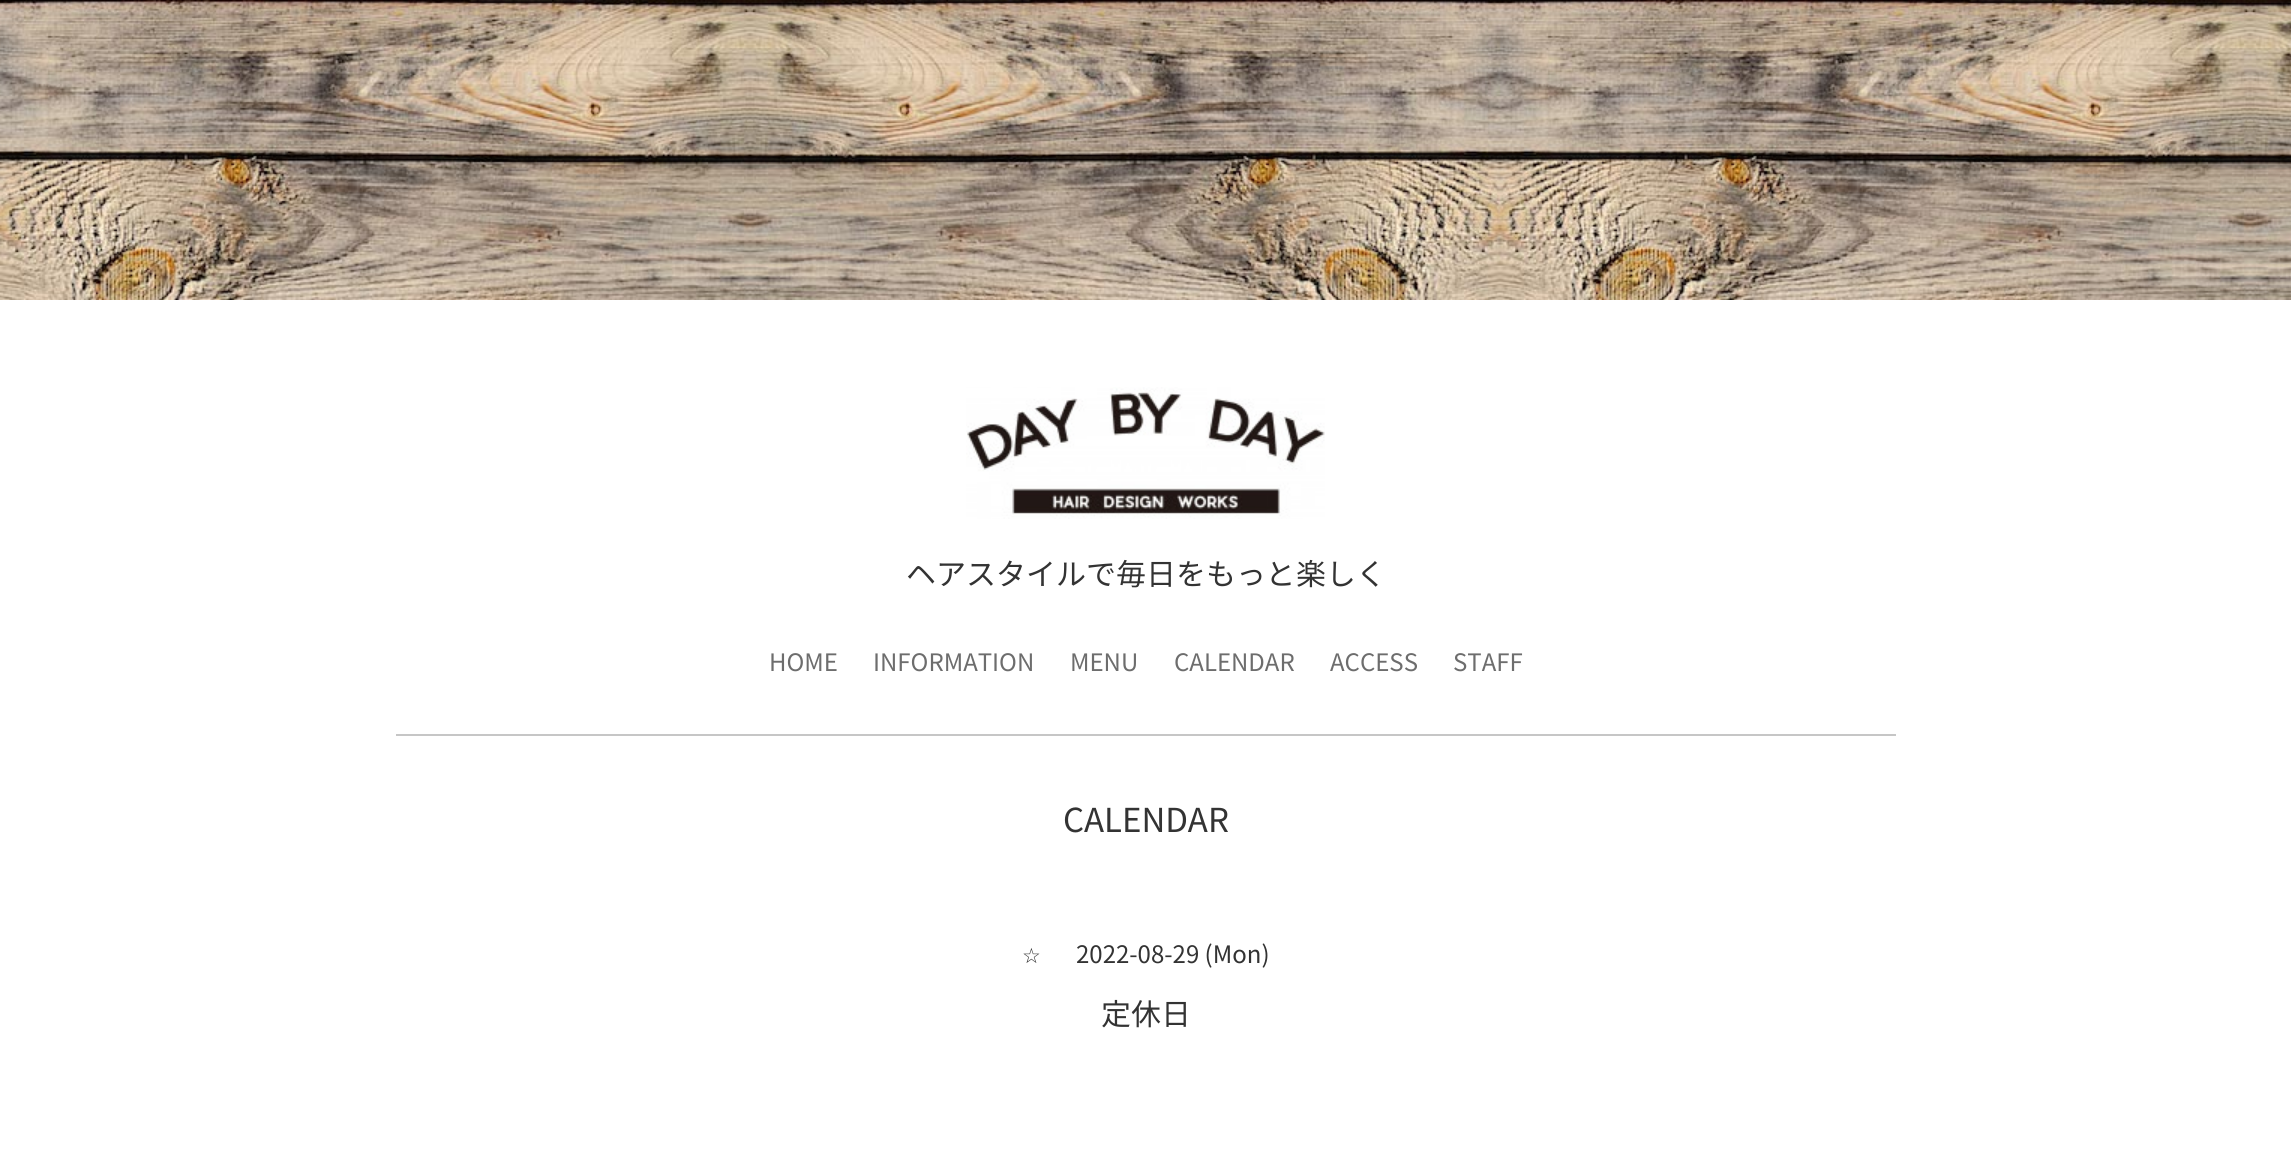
import math
import cairo

surface = cairo.ImageSurface(cairo.Format.RGB24, 2291, 1161)
ctx = cairo.Context(surface)
options = cairo.FontOptions()
options.set_hint_metrics(cairo.HintMetrics.OFF)
options.set_hint_style(cairo.HintStyle.NONE)
ctx.set_font_options(options)
ctx.set_miter_limit(4)


def ink(r, g, b):
    ctx.set_source_rgb(r / 255, g / 255, b / 255)


def write(x, y, s, family, size, color, bold=False, italic=False):
    ctx.select_font_face(family, cairo.FontSlant.ITALIC if italic else cairo.FontSlant.NORMAL, cairo.FontWeight.BOLD if bold else cairo.FontWeight.NORMAL)
    ctx.set_font_size(size)
    ink(*color)
    ctx.move_to(x, y)
    ctx.show_text(s)


def block(x, y, w, h, *color):
    ink(*color)
    ctx.rectangle(x, y, w, h)
    ctx.fill()


def paste(path, x, y, w, h):
    ctx.save()
    ctx.set_source_surface(cairo.ImageSurface.create_from_png(path), x, y)
    ctx.rectangle(x, y, w, h)
    ctx.fill()
    ctx.restore()


s1 = dict(family="Noto Sans JP", size=30, color=(51, 51, 51))
s2 = dict(family="Noto Sans JP", size=24, color=(109, 109, 109))
s3 = dict(family="Noto Sans JP", size=33, color=(51, 51, 51))
s4 = dict(family="DejaVu Sans", size=21, color=(51, 51, 51))
s5 = dict(family="Noto Sans JP", size=24, color=(51, 51, 51))

ink(255, 255, 255)
ctx.paint()
paste("pic1.png", 0, 0, 2291, 300)
block(396, 734, 1500, 2, 198, 198, 198)
paste("pic2.png", 966, 387, 359, 132)
write(906, 585, "ヘアスタイルで毎日をもっと楽しく", **s1)
write(769, 671, "HOME", **s2)
write(873, 671, "INFORMATION", **s2)
write(1070, 671, "MENU", **s2)
write(1174, 671, "CALENDAR", **s2)
write(1330, 671, "ACCESS", **s2)
write(1453, 671, "STAFF", **s2)
write(1063, 832, "CALENDAR", **s3)
write(1022, 963, "☆", **s4)
write(1076, 963, "2022-08-29 (Mon)", **s5)
write(1101, 1025, "定休日", **s1)
surface.write_to_png("screenshot.png")
